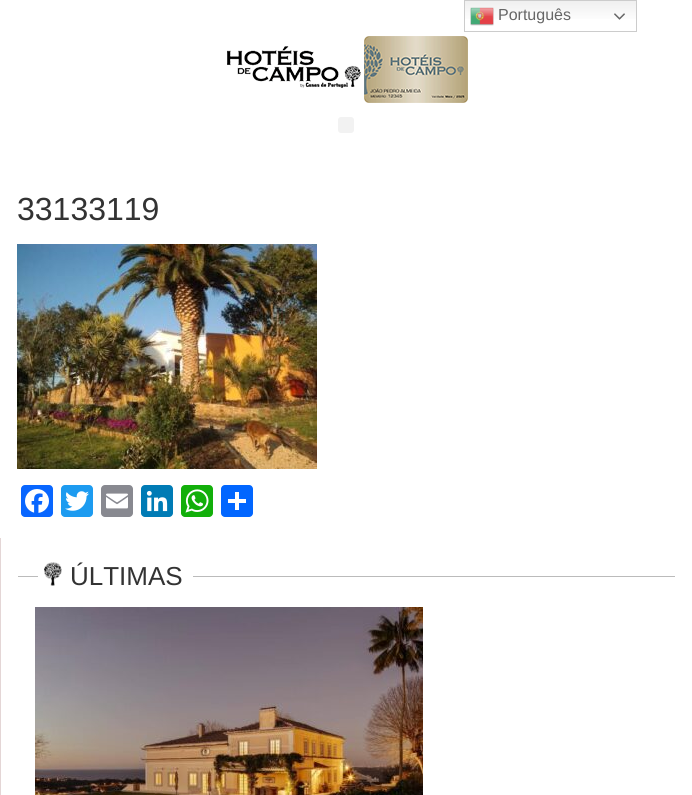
import math
import cairo

surface = cairo.ImageSurface(cairo.Format.RGB24, 692, 795)
ctx = cairo.Context(surface)
options = cairo.FontOptions()
options.set_hint_metrics(cairo.HintMetrics.OFF)
options.set_hint_style(cairo.HintStyle.NONE)
ctx.set_font_options(options)
ctx.set_miter_limit(4)


def ink(r, g, b):
    ctx.set_source_rgb(r / 255, g / 255, b / 255)


def write(x, y, s, family, size, color, bold=False, italic=False):
    ctx.select_font_face(family, cairo.FontSlant.ITALIC if italic else cairo.FontSlant.NORMAL, cairo.FontWeight.BOLD if bold else cairo.FontWeight.NORMAL)
    ctx.set_font_size(size)
    ink(*color)
    ctx.move_to(x, y)
    ctx.show_text(s)


def block(x, y, w, h, *color):
    ink(*color)
    ctx.rectangle(x, y, w, h)
    ctx.fill()


def round_path(x, y, w, h, r):
    ctx.new_sub_path()
    for i, (u, v) in enumerate([(x + w - r, y + h - r), (x + r, y + h - r), (x + r, y + r), (x + w - r, y + r)]):
        ctx.arc(u, v, r, i * math.pi / 2, (i + 1) * math.pi / 2)
    ctx.close_path()


def paste(path, x, y, w, h):
    ctx.save()
    ctx.set_source_surface(cairo.ImageSurface.create_from_png(path), x, y)
    ctx.rectangle(x, y, w, h)
    ctx.fill()
    ctx.restore()


s1 = dict(family="Liberation Sans", size=16, color=(102, 102, 102))
s2 = dict(family="Liberation Sans", size=32, color=(51, 51, 51))
s3 = dict(family="Liberation Sans", size=26, color=(51, 51, 51))

ink(255, 255, 255)
ctx.paint()
gradient = cairo.LinearGradient(551, 0, 551, 32)
gradient.add_color_stop_rgba(0, 0.937, 0.937, 0.937, 1)
gradient.add_color_stop_rgba(0.7, 1, 1, 1, 1)
ctx.set_source(gradient)
ctx.rectangle(465, 1, 171, 18)
ctx.fill()
ctx.rectangle(464.5, 0.5, 172, 31)
ink(204, 204, 204)
ctx.set_line_width(1)
ctx.stroke()
paste("pic1.png", 470, 7, 24, 19)
write(498, 20, "Português", **s1)
paste("pic2.png", 614, 13, 11, 7)
paste("pic3.png", 227, 36, 241, 67)
ink(242, 242, 242)
round_path(338, 117, 16, 16, 3)
ctx.fill()
write(17, 220, "33133119", **s2)
paste("pic4.png", 17, 244, 300, 225)
ink(8, 102, 255)
round_path(21, 485, 32, 32, 4)
ctx.fill()
paste("pic5.png", 25, 489, 24, 24)
ink(29, 155, 240)
round_path(61, 485, 32, 32, 4)
ctx.fill()
paste("pic6.png", 65, 491, 24, 20)
ink(136, 137, 144)
round_path(101, 485, 32, 32, 4)
ctx.fill()
paste("pic7.png", 106, 493, 22, 16)
ink(0, 123, 181)
round_path(141, 485, 32, 32, 4)
ctx.fill()
paste("pic8.png", 146, 490, 22, 22)
ink(18, 175, 10)
round_path(181, 485, 32, 32, 4)
ctx.fill()
paste("pic9.png", 185, 489, 24, 24)
ink(1, 102, 255)
round_path(221, 485, 32, 32, 4)
ctx.fill()
block(235, 492, 4, 18, 255, 255, 255)
block(228, 499, 18, 4, 255, 255, 255)
block(0, 538, 1, 257, 228, 214, 214)
block(18, 576, 657, 1, 187, 187, 187)
block(38, 576, 155, 1, 255, 255, 255)
paste("pic10.png", 44, 562, 18, 24)
write(70, 585, "ÚLTIMAS", **s3)
paste("pic11.png", 35, 607, 388, 188)
surface.write_to_png("screenshot.png")
